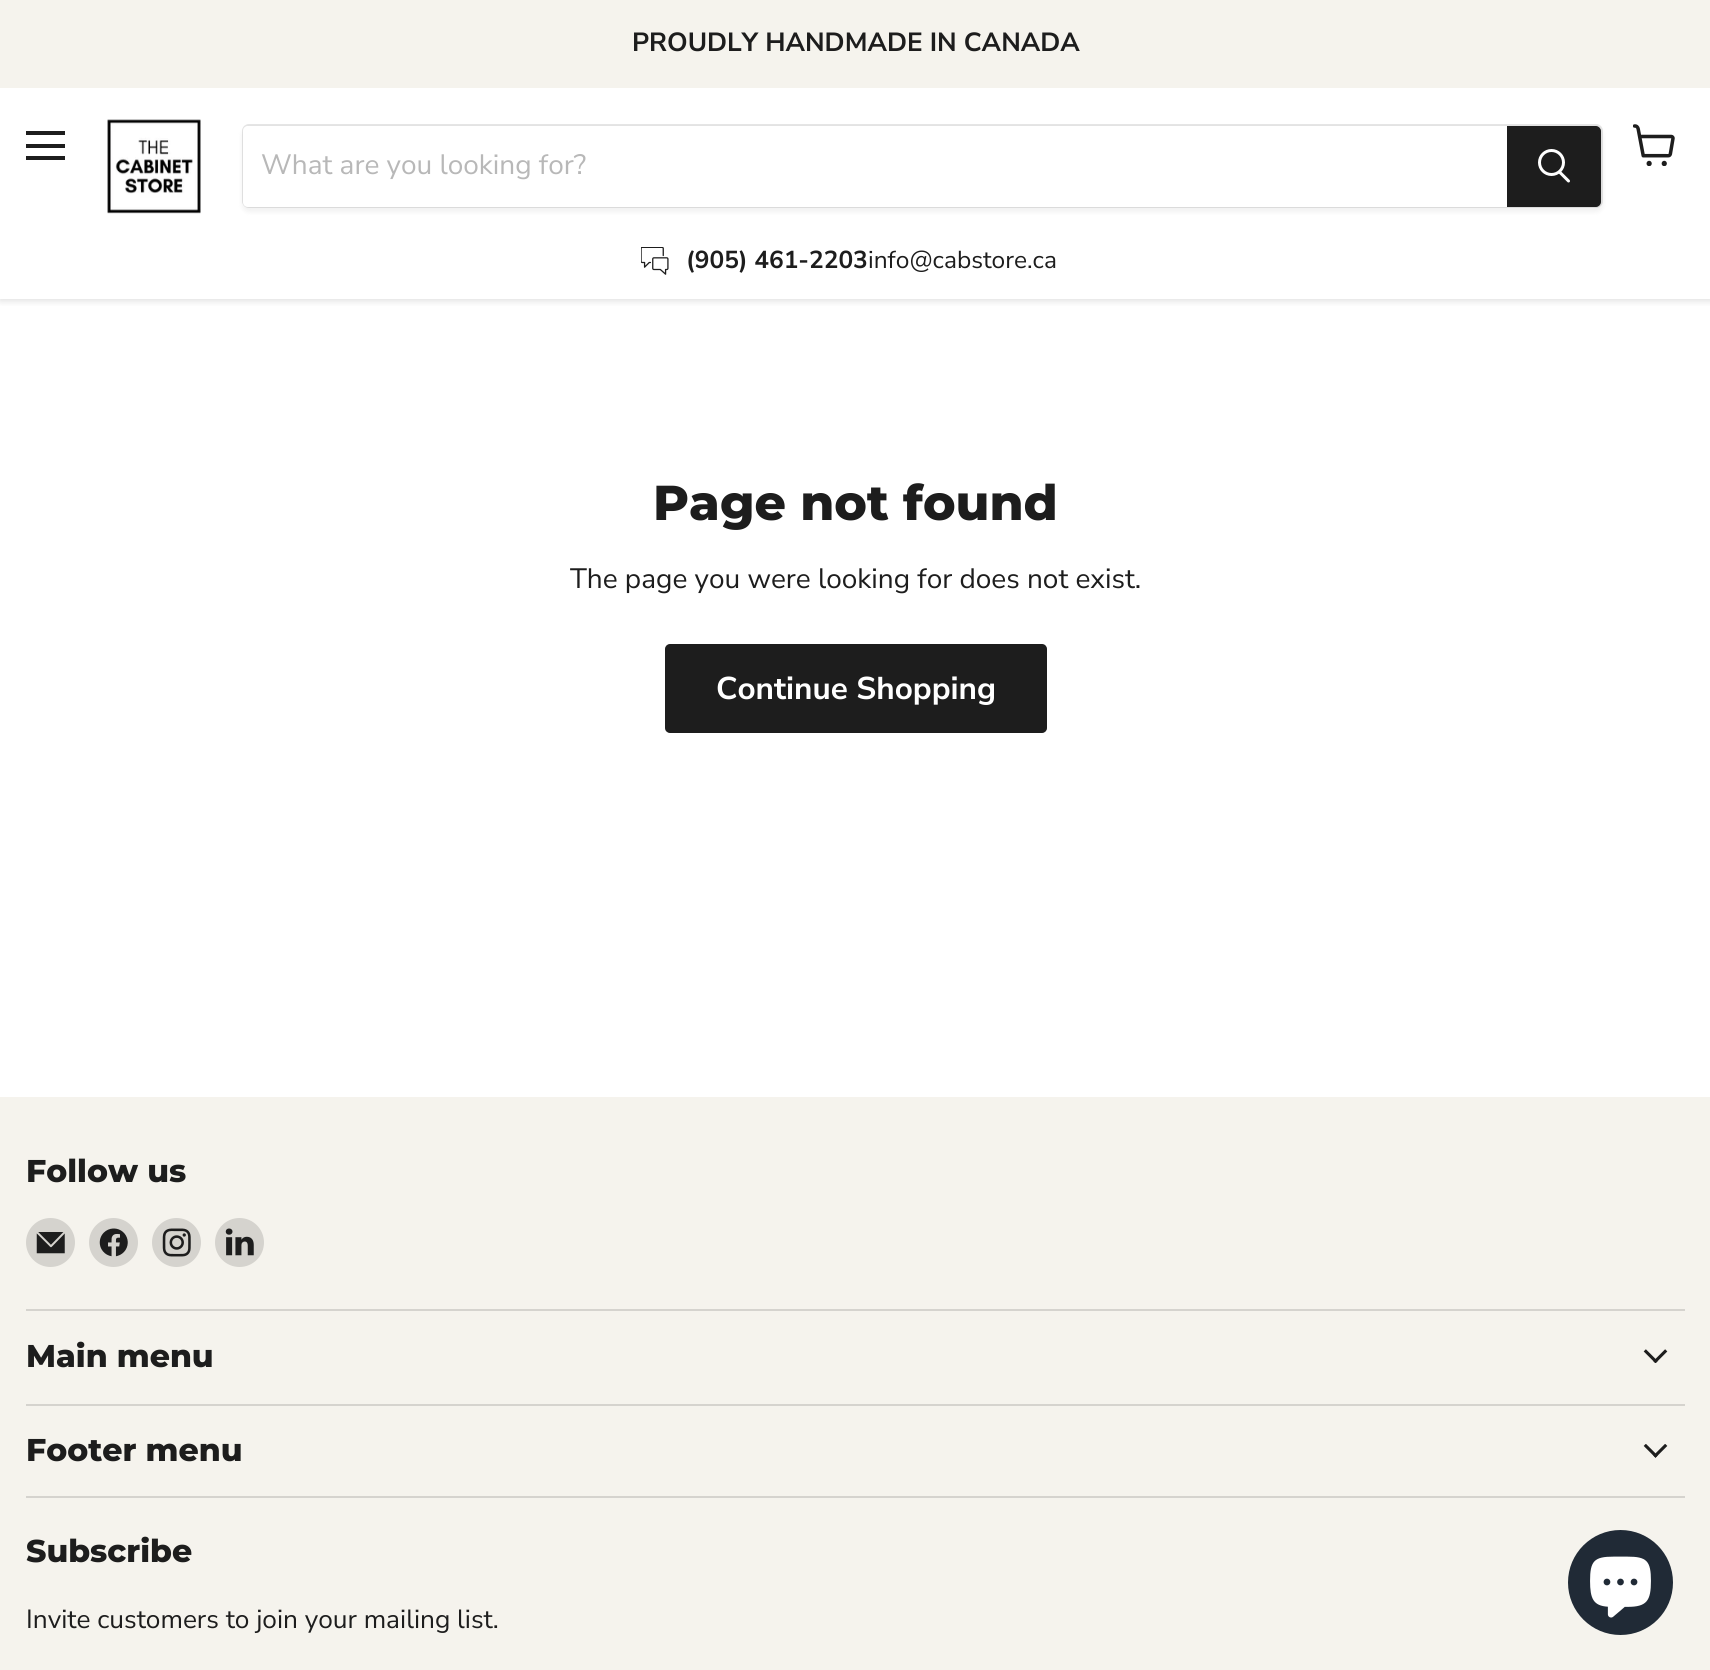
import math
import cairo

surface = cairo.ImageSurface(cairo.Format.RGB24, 1710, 1670)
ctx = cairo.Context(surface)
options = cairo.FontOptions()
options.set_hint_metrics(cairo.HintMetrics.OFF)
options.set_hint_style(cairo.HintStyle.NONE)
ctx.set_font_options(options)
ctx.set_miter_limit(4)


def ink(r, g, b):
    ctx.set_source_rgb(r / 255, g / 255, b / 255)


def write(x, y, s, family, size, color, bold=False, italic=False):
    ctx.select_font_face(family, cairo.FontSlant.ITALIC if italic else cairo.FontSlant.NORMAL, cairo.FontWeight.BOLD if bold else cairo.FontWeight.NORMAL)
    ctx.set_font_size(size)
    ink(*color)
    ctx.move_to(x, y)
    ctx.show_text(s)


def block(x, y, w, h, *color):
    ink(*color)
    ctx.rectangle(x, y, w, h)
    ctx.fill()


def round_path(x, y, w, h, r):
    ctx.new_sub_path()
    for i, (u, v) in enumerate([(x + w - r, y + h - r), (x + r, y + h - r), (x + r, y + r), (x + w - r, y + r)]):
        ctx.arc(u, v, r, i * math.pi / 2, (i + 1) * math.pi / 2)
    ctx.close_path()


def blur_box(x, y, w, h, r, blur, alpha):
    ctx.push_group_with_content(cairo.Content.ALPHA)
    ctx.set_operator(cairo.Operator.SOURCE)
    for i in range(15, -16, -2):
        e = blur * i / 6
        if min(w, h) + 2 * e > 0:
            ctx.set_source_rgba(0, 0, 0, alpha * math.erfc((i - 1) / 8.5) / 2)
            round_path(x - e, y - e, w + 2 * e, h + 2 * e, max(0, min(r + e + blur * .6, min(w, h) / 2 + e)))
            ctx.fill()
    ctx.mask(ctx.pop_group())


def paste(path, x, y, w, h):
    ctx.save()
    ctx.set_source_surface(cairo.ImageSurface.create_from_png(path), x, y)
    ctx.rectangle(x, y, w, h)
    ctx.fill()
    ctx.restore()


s1 = dict(family="Nunito Sans", size=26.25, color=(29, 29, 29), bold=True)
s2 = dict(family="Nunito Sans", size=28, color=(184, 184, 184))
s3 = dict(family="Nunito Sans", size=24.5, color=(29, 29, 29), bold=True)
s4 = dict(family="Nunito Sans", size=24.5, color=(29, 29, 29))
s5 = dict(family="Montserrat ExtraBold", size=49, color=(29, 29, 29))
s6 = dict(family="Nunito Sans", size=28, color=(29, 29, 29))
s7 = dict(family="Nunito Sans", size=31.5, color=(255, 255, 255), bold=True)
s8 = dict(family="Montserrat ExtraBold", size=31.5, color=(29, 29, 29))
s9 = dict(family="Nunito Sans", size=26.25, color=(29, 29, 29))

ink(255, 255, 255)
ctx.paint()
ctx.save()
ctx.rectangle(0, 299, 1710, 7)
ctx.clip()
ink(128, 128, 128)
blur_box(0, 89, 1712, 212, 0, 3.5, 0.25)
ctx.restore()
block(0, 0, 1710, 88, 245, 243, 237)
write(632, 51, "PROUDLY HANDMADE IN CANADA", **s1)
block(26, 131, 39, 4, 29, 29, 29)
block(26, 144, 39, 4, 29, 29, 29)
block(26, 156, 39, 4, 29, 29, 29)
paste("pic1.png", 1633, 124, 42, 42)
paste("pic2.png", 107, 119, 94, 95)
ink(128, 128, 128)
blur_box(242, 128, 1361, 84, 7, 2.5, 0.11)
round_path(243, 125, 1359, 82, 6)
ctx.set_source_rgba(0.502, 0.502, 0.502, 0.2)
ctx.stroke()
ink(255, 255, 255)
ctx.new_path()
ctx.move_to(248, 126)
ctx.line_to(1507, 126)
ctx.line_to(1507, 207)
ctx.line_to(248, 207)
ctx.curve_to(245, 207, 243, 205, 243, 202)
ctx.line_to(243, 131)
ctx.curve_to(243, 128, 245, 126, 248, 126)
ctx.close_path()
ctx.fill()
write(261, 174, "What are you looking for?", **s2)
ink(29, 29, 29)
ctx.new_path()
ctx.move_to(1508, 127)
ctx.line_to(1596, 127)
ctx.curve_to(1598, 127, 1600, 129, 1600, 131)
ctx.line_to(1600, 202)
ctx.curve_to(1600, 204, 1598, 206, 1596, 206)
ctx.line_to(1508, 206)
ctx.close_path()
ctx.fill_preserve()
ctx.stroke()
ctx.new_path()
ctx.move_to(1568.5, 181)
ctx.line_to(1560, 172.5)
ink(255, 255, 255)
ctx.set_line_width(3)
ctx.set_line_cap(cairo.LineCap.ROUND)
ctx.stroke()
ctx.arc(1551.5, 162.5, 12, 0, 2 * math.pi)
ctx.set_line_cap(cairo.LineCap.BUTT)
ctx.stroke()
paste("pic3.png", 641, 247, 28, 28)
write(686, 268, "(905) 461-2203", **s3)
write(868, 268, "info@cabstore.ca", **s4)
write(653, 520, "Page not found", **s5)
write(570, 588, "The page you were looking for does not exist.", **s6)
round_path(666, 645, 380, 87, 4)
ctx.fill_preserve()
ctx.set_line_width(2)
ctx.stroke()
write(716, 699, "Continue Shopping", **s7)
block(0, 1097, 1710, 573, 245, 243, 237)
block(26, 1309, 1659, 2, 213, 211, 206)
write(26, 1182, "Follow us", **s8)
ink(213, 211, 206)
ctx.new_path()
ctx.arc(50.5, 1242.5, 24.5, 0, 2 * math.pi)
ctx.fill()
paste("pic4.png", 36, 1232, 29, 22)
ctx.arc(113.5, 1242.5, 24.5, 0, 2 * math.pi)
ctx.fill()
paste("pic5.png", 99, 1228, 29, 29)
ctx.arc(176.5, 1242.5, 24.5, 0, 2 * math.pi)
ctx.fill()
paste("pic6.png", 162, 1228, 29, 29)
ctx.arc(239.5, 1242.5, 24.5, 0, 2 * math.pi)
ctx.fill()
paste("pic7.png", 225, 1228, 29, 28)
block(26, 1404, 1659, 2, 213, 211, 206)
write(26, 1367, "Main menu", **s8)
paste("pic8.png", 1643, 1349, 25, 14)
block(26, 1496, 1659, 2, 213, 211, 206)
write(26, 1461, "Footer menu", **s8)
paste("pic9.png", 1643, 1444, 25, 14)
write(26, 1562, "Subscribe", **s8)
write(26, 1628, "Invite customers to join your mailing list.", **s9)
ink(32, 42, 54)
ctx.new_path()
ctx.arc(1620.5, 1582.5, 52.5, 0, 2 * math.pi)
ctx.fill()
paste("pic10.png", 1590, 1556, 61, 62)
surface.write_to_png("screenshot.png")
